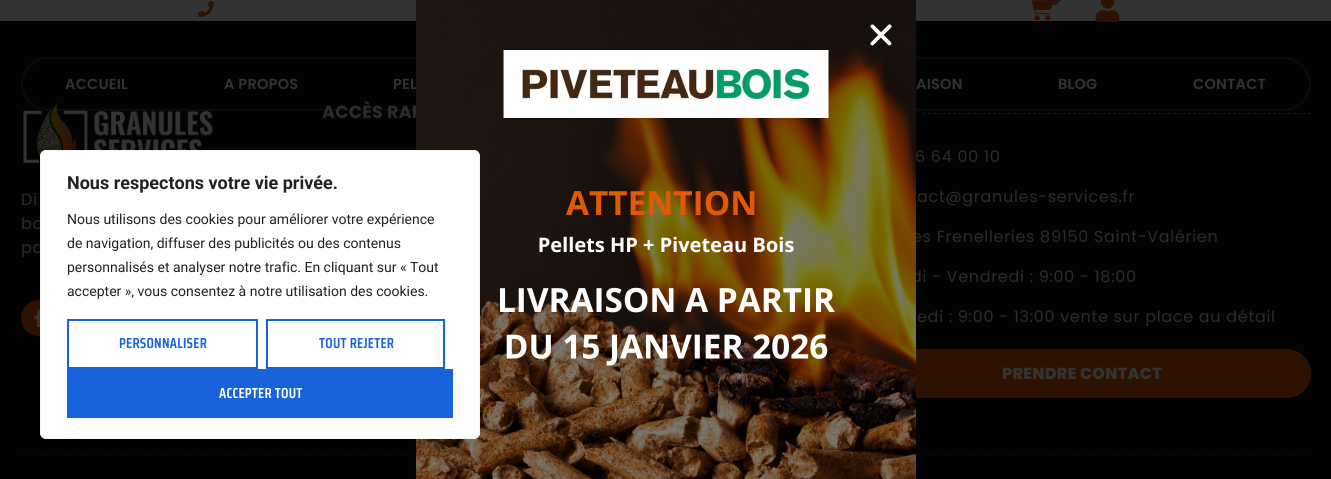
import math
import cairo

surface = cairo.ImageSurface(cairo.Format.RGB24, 1331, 479)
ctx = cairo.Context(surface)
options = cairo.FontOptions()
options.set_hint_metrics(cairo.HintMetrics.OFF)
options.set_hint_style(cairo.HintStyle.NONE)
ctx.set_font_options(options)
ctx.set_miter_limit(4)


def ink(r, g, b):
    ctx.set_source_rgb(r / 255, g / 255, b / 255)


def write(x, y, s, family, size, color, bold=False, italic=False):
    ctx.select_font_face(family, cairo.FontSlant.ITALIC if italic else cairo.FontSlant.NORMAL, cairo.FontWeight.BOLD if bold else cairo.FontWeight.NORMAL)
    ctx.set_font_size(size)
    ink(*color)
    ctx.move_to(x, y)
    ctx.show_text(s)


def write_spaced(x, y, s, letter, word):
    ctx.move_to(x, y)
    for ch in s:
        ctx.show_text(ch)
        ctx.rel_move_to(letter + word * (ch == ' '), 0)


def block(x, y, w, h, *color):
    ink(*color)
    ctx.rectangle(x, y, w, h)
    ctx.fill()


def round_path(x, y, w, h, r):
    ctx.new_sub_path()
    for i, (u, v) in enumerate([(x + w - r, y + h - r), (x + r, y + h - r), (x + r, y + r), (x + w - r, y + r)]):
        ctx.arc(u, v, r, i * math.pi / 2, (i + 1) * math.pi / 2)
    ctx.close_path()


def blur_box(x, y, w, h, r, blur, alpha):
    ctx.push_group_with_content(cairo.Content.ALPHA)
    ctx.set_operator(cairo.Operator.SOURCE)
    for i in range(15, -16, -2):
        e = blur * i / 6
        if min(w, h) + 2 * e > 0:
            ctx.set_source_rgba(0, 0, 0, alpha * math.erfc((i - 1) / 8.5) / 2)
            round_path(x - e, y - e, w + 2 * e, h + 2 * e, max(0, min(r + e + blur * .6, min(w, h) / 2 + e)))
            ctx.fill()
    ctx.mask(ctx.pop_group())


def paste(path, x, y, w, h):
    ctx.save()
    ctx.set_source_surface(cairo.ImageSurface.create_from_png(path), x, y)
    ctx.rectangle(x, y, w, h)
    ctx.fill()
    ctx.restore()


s1 = dict(family="Roboto", size=18, color=(33, 33, 33), bold=True)
s2 = dict(family="Roboto", size=14, color=(33, 33, 33))

ink(51, 51, 51)
ctx.paint()
block(0, 21, 1331, 458, 3, 3, 3)
ctx.select_font_face("Poppins", cairo.FontSlant.NORMAL, cairo.FontWeight.BOLD)
ctx.set_font_size(17.5)
ink(43, 43, 43)
write_spaced(322, 118, "ACCÈS RAP", 0.25, 0)
paste("pic6.png", 23, 103, 190, 60)
round_path(22, 58, 1288, 52, 26)
ctx.set_source_rgba(0.2, 0.2, 0.2, 0.16)
ctx.stroke()
ctx.select_font_face("Poppins SemiBold")
ctx.set_font_size(14.5)
ink(51, 51, 51)
write_spaced(393, 89, "PEL", 0.25, 0)
ctx.select_font_face("Poppins")
ctx.set_font_size(16)
ink(43, 43, 43)
write_spaced(912, 242, "es Frenelleries 89150 Saint-Valérien", 0.7, 0)
write_spaced(911, 282, "di - Vendredi : 9:00 - 18:00", 0.7, 0)
ink(45, 18, 1)
round_path(855, 350, 455, 47, 23.5)
ctx.fill_preserve()
ctx.stroke()
ctx.new_path()
ctx.move_to(20, 454.5)
ctx.line_to(1311, 454.5)
ink(11, 11, 11)
ctx.set_line_width(1)
ctx.set_dash([3, 1.99])
ctx.stroke()
paste("pic1.png", 416, 0, 500, 479)
paste("pic2.png", 870, 24, 22, 22)
paste("pic3.png", 198, 1, 16, 16)
paste("pic4.png", 1031, 0, 22, 21)
ink(43, 17, 16)
round_path(1045, -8, 16, 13, 8)
ctx.fill()
paste("pic5.png", 1095, 0, 25, 22)
ctx.select_font_face("Poppins SemiBold")
ctx.set_font_size(14.5)
ink(51, 51, 51)
write_spaced(65, 89, "ACCUEIL", 0.25, 0)
write_spaced(224, 89, "A PROPOS", 0.25, 0)
write_spaced(916, 89, "AISON", 0.25, 0)
write_spaced(1058, 89, "BLOG", 0.25, 0)
write_spaced(1193, 89, "CONTACT", 0.25, 0)
ctx.select_font_face("Poppins")
ctx.set_font_size(16)
ink(43, 43, 43)
write_spaced(21, 205, "Di", 0.7, 0)
write_spaced(21, 229, "bo", 0.7, 0)
write_spaced(21, 253, "pa", 0.7, 0)
ink(45, 18, 1)
ctx.new_path()
ctx.arc(39, 318, 18, 0, 2 * math.pi)
ctx.fill()
paste("pic7.png", 34, 309, 6, 18)
ctx.new_path()
ctx.move_to(923, 113.5)
ctx.line_to(1311, 113.5)
ctx.set_dash([3, 2])
ctx.stroke()
ink(43, 43, 43)
write_spaced(915, 162, "6 64 00 10", 0.7, 0)
write_spaced(917, 202, "act@granules-services.fr", 0.7, 0)
write_spaced(917, 322, "edi : 9:00 - 13:00 vente sur place au détail", 0.7, 0)
ctx.select_font_face("Poppins ExtraBold")
ink(51, 51, 51)
write_spaced(1002, 379, "PRENDRE CONTACT", 0.25, 0)
ctx.save()
round_path(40, 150, 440, 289, 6)
ctx.clip()
ink(172, 171, 171)
blur_box(40, 149, 440, 289, 6, 5, 0.3)
ctx.restore()
ink(255, 255, 255)
round_path(40.5, 150.5, 439, 288, 5.5)
ctx.fill_preserve()
ink(244, 244, 244)
ctx.set_dash([])
ctx.stroke()
write(67, 189, "Nous respectons votre vie privée.", **s1)
write(67, 224, "Nous utilisons des cookies pour améliorer votre expérience", **s2)
write(67, 248, "de navigation, diffuser des publicités ou des contenus", **s2)
write(67, 272, "personnalisés et analyser notre trafic. En cliquant sur « Tout", **s2)
write(67, 296, "accepter », vous consentez à notre utilisation des cookies.", **s2)
ctx.rectangle(68, 320, 189, 48)
ink(24, 99, 220)
ctx.set_line_width(2)
ctx.stroke()
ctx.select_font_face("Saira Condensed SemiBold")
ctx.set_font_size(14.5)
write_spaced(119, 348, "PERSONNALISER", 0.25, 0)
ctx.rectangle(267, 320, 177, 48)
ctx.stroke()
write_spaced(319, 348, "TOUT REJETER", 0.25, 0)
block(67, 369, 386, 49, 24, 99, 220)
ink(255, 255, 255)
write_spaced(219, 398, "ACCEPTER TOUT", 0.25, 0)
surface.write_to_png("screenshot.png")
